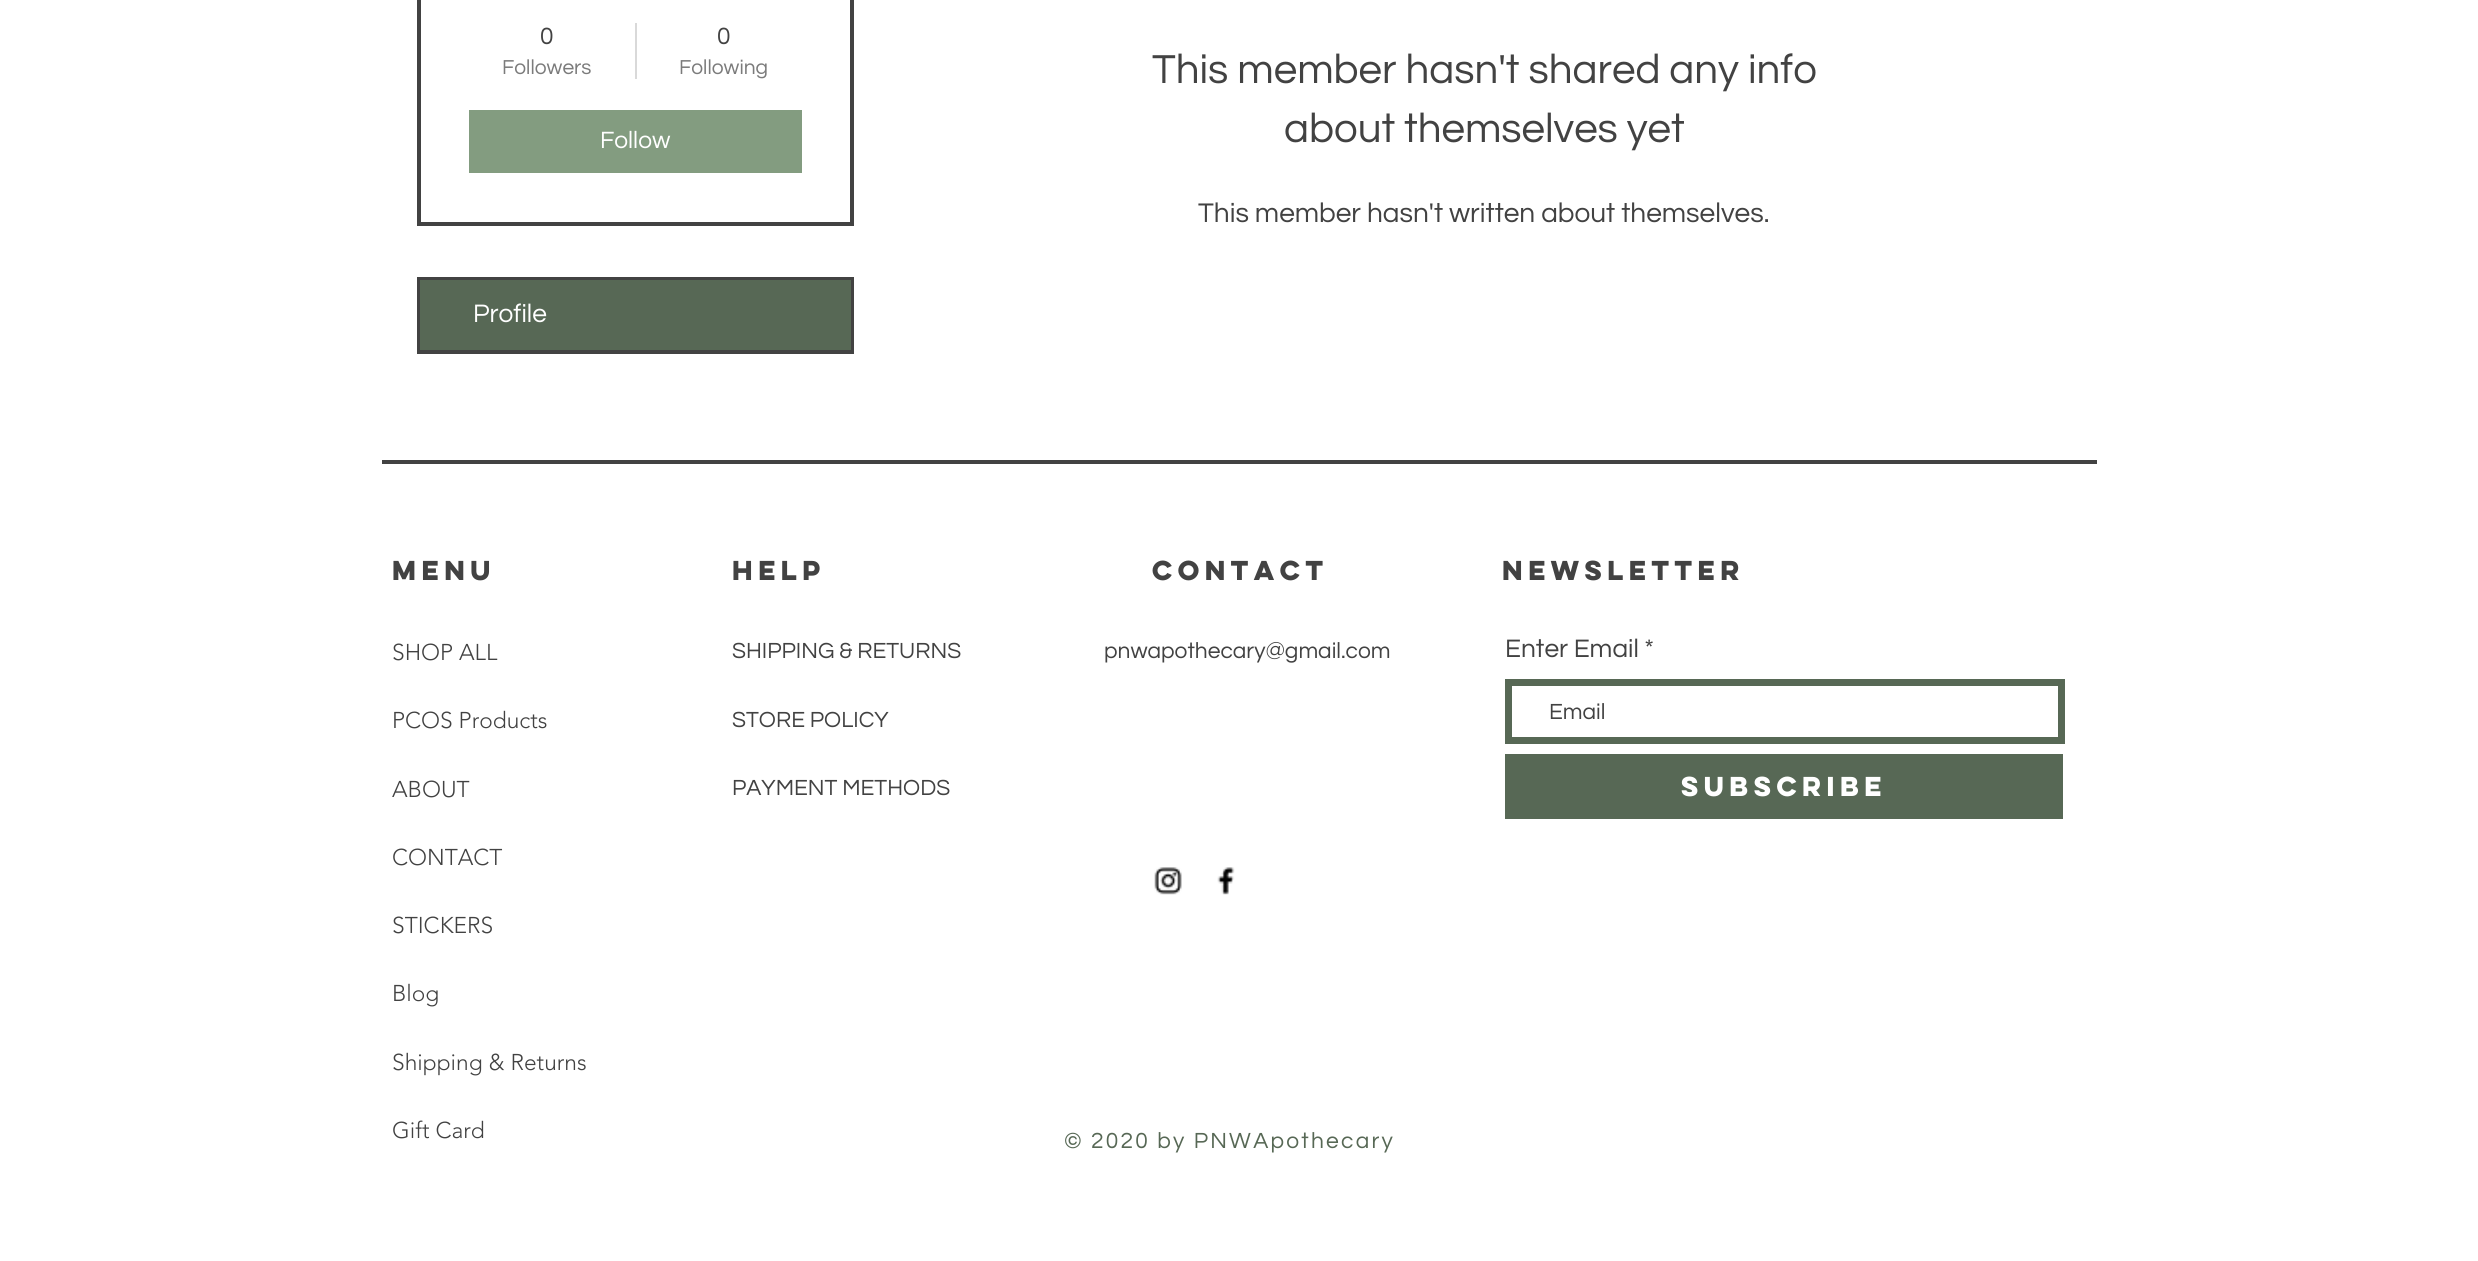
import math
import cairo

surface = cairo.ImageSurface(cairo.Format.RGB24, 2478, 1261)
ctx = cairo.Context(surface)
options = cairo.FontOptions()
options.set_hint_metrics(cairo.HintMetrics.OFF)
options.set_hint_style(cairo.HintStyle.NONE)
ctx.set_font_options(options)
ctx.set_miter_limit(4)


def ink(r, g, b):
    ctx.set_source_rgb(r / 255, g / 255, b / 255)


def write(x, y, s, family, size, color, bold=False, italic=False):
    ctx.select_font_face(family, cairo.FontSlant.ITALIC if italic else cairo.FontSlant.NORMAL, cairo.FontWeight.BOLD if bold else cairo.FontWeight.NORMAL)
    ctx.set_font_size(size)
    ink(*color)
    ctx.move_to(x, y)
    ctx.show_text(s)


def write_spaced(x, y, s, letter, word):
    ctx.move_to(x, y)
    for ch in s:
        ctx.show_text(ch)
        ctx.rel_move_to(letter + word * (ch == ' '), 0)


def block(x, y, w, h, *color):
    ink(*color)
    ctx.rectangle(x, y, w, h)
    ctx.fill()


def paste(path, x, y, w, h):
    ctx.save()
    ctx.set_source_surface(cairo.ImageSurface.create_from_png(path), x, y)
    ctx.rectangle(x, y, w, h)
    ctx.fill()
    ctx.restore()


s1 = dict(family="Questrial", size=24.5, color=(66, 66, 66))
s2 = dict(family="Questrial", size=21, color=(123, 123, 123))
s3 = dict(family="Questrial", size=24.5, color=(255, 255, 255))
s4 = dict(family="Questrial", size=26.25, color=(255, 255, 255))
s5 = dict(family="Questrial", size=42, color=(66, 66, 66))
s6 = dict(family="Questrial", size=28, color=(66, 66, 66))
s7 = dict(family="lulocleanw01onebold", size=24.5, color=(66, 66, 66), bold=True)
s8 = dict(family="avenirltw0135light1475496 Light", size=22.75, color=(66, 66, 66))
s9 = dict(family="Questrial", size=22.75, color=(66, 66, 66))
s10 = dict(family="Questrial", size=26.25, color=(66, 66, 66))
s11 = dict(family="lulocleanw01onebold", size=24.5, color=(255, 255, 255), bold=True)

ink(255, 255, 255)
ctx.paint()
ctx.rectangle(419, -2, 433, 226)
ink(66, 66, 66)
ctx.set_line_width(4)
ctx.stroke()
write(540, 44, "0", **s1)
write(502, 74, "Followers", **s2)
block(635, 23, 2, 56, 217, 217, 217)
write(717, 44, "0", **s1)
write(679, 74, "Following", **s2)
block(469, 110, 333, 63, 131, 156, 128)
write(600, 148, "Follow", **s3)
ctx.rectangle(419, 279, 433, 73)
ink(66, 66, 66)
ctx.stroke()
block(420, 280, 431, 70, 87, 104, 85)
write(473, 322, "Profile", **s4)
write(1152, 83, "This member hasn't shared any info", **s5)
write(1284, 142, "about themselves yet", **s5)
write(1198, 222, "This member hasn't written about themselves.", **s6)
block(382, 460, 1715, 4, 66, 66, 66)
write(392, 580, "Menu", **s7)
write(732, 580, "HELP", **s7)
write(1152, 580, "CONTACT", **s7)
write(1502, 580, "Newsletter", **s7)
write(392, 660, "SHOP ALL", **s8)
write(392, 728, "PCOS Products", **s8)
write(392, 797, "ABOUT", **s8)
write(392, 865, "CONTACT", **s8)
write(392, 933, "STICKERS", **s8)
write(392, 1001, "Blog", **s8)
write(392, 1070, "Shipping & Returns", **s8)
write(392, 1138, "Gift Card", **s8)
write(732, 658, "SHIPPING & RETURNS", **s9)
write(732, 727, "STORE POLICY", **s9)
write(732, 795, "PAYMENT METHODS", **s9)
write(1104, 658, "pnwapothecary@gmail.com", **s9)
write(1505, 657, "Enter Email *", **s10)
ctx.rectangle(1508.5, 682.5, 553, 58)
ink(87, 104, 85)
ctx.set_line_width(7)
ctx.stroke()
write(1549, 719, "Email", **s9)
block(1505, 754, 558, 65, 87, 104, 85)
write(1681, 796, "SUBSCRIBE", **s11)
paste("pic1.png", 1154, 867, 28, 28)
paste("pic2.png", 1217, 867, 18, 28)
ctx.select_font_face("Questrial")
ctx.set_font_size(22.75)
ink(87, 104, 85)
write_spaced(1064, 1148, "© 2020 by PNWApothecary", 2.25, 0)
surface.write_to_png("screenshot.png")
